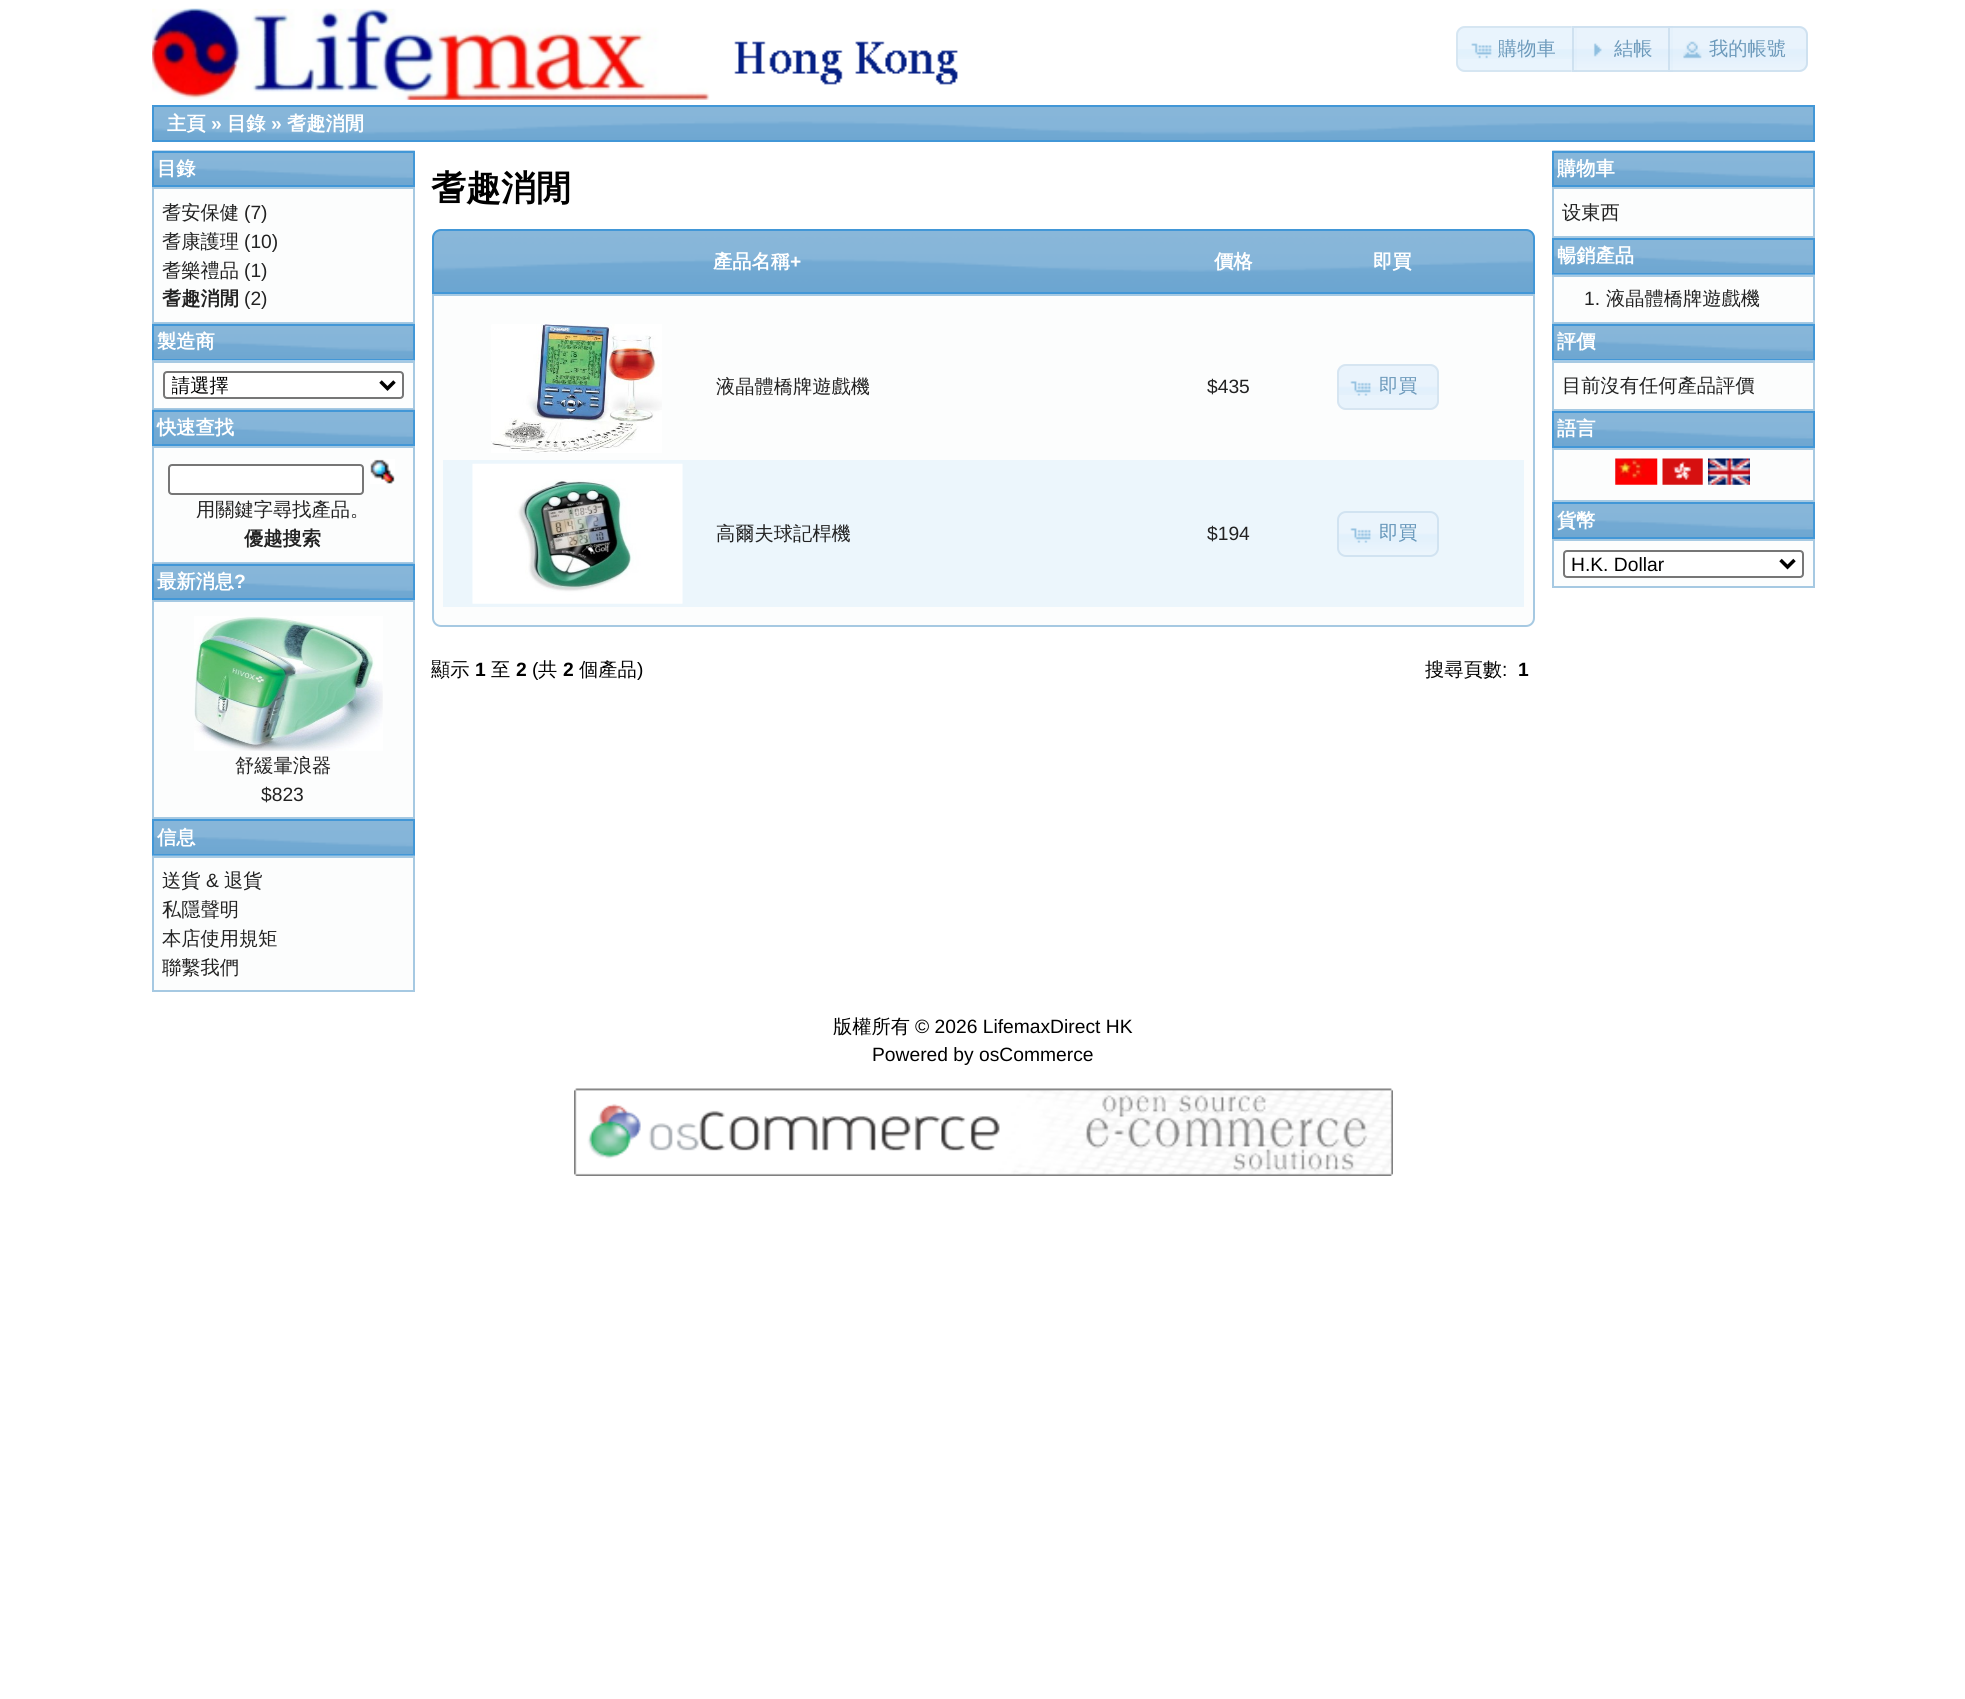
import math
import cairo

surface = cairo.ImageSurface(cairo.Format.RGB24, 1965, 1699)
ctx = cairo.Context(surface)
options = cairo.FontOptions()
options.set_hint_metrics(cairo.HintMetrics.OFF)
options.set_hint_style(cairo.HintStyle.NONE)
ctx.set_font_options(options)
ctx.set_miter_limit(4)


def ink(r, g, b):
    ctx.set_source_rgb(r / 255, g / 255, b / 255)


def write(x, y, s, family, size, color, bold=False, italic=False):
    ctx.select_font_face(family, cairo.FontSlant.ITALIC if italic else cairo.FontSlant.NORMAL, cairo.FontWeight.BOLD if bold else cairo.FontWeight.NORMAL)
    ctx.set_font_size(size)
    ink(*color)
    ctx.move_to(x, y)
    ctx.show_text(s)


def block(x, y, w, h, *color):
    ink(*color)
    ctx.rectangle(x, y, w, h)
    ctx.fill()


def round_path(x, y, w, h, r):
    ctx.new_sub_path()
    for i, (u, v) in enumerate([(x + w - r, y + h - r), (x + r, y + h - r), (x + r, y + r), (x + w - r, y + r)]):
        ctx.arc(u, v, r, i * math.pi / 2, (i + 1) * math.pi / 2)
    ctx.close_path()


def paste(path, x, y, w, h):
    ctx.save()
    ctx.set_source_surface(cairo.ImageSurface.create_from_png(path), x, y)
    ctx.rectangle(x, y, w, h)
    ctx.fill()
    ctx.restore()


s1 = dict(family="WenQuanYi Zen Hei Medium", size=19.25, color=(109, 154, 187))
s2 = dict(family="WenQuanYi Zen Hei", size=19.25, color=(255, 255, 255), bold=True)
s3 = dict(family="Liberation Sans", size=19.25, color=(255, 255, 255), bold=True)
s4 = dict(family="WenQuanYi Zen Hei Medium", size=19.25, color=(34, 34, 34))
s5 = dict(family="Liberation Sans", size=19.25, color=(34, 34, 34))
s6 = dict(family="WenQuanYi Zen Hei", size=19.25, color=(34, 34, 34), bold=True)
s7 = dict(family="WenQuanYi Zen Hei Medium", size=19.25, color=(0, 0, 0))
s8 = dict(family="WenQuanYi Zen Hei", size=35, color=(0, 0, 0), bold=True)
s9 = dict(family="WenQuanYi Zen Hei Medium", size=19.25, color=(103, 151, 186))
s10 = dict(family="Liberation Sans", size=19.25, color=(0, 0, 0), bold=True)
s11 = dict(family="Liberation Sans", size=19.25, color=(0, 0, 0))

ink(255, 255, 255)
ctx.paint()
paste("pic1.png", 152, 8, 806, 92)
ink(233, 244, 253)
ctx.new_path()
ctx.move_to(1465, 26)
ctx.line_to(1577, 26)
ctx.line_to(1577, 72)
ctx.line_to(1465, 72)
ctx.curve_to(1460, 72, 1456, 68, 1456, 63)
ctx.line_to(1456, 35)
ctx.curve_to(1456, 30, 1460, 26, 1465, 26)
ctx.close_path()
ctx.fill()
paste("pic2.png", 1458, 49, 117, 10)
ctx.new_path()
ctx.move_to(1465, 27)
ctx.line_to(1576, 27)
ctx.line_to(1576, 71)
ctx.line_to(1465, 71)
ctx.curve_to(1460.5, 71, 1457, 67.5, 1457, 63)
ctx.line_to(1457, 35)
ctx.curve_to(1457, 30.5, 1460.5, 27, 1465, 27)
ctx.close_path()
ink(214, 230, 242)
ctx.stroke()
paste("pic3.png", 1471, 43, 21, 16)
write(1498, 55, "購物車", **s1)
ctx.set_source_rgba(0.875, 0.937, 0.988, 0.7)
ctx.rectangle(1572, 26, 101, 46)
ctx.fill()
paste("pic4.png", 1571, 26, 102, 46)
ctx.rectangle(1573, 27, 99, 44)
ctx.set_source_rgba(0.773, 0.859, 0.925, 0.7)
ctx.stroke()
paste("pic5.png", 1593, 43, 9, 14)
write(1614, 55, "結帳", **s1)
ctx.set_source_rgba(0.875, 0.937, 0.988, 0.7)
ctx.new_path()
ctx.move_to(1668, 26)
ctx.line_to(1799, 26)
ctx.curve_to(1804, 26, 1808, 30, 1808, 35)
ctx.line_to(1808, 63)
ctx.curve_to(1808, 68, 1804, 72, 1799, 72)
ctx.line_to(1668, 72)
ctx.close_path()
ctx.fill()
paste("pic6.png", 1668, 26, 140, 46)
ctx.new_path()
ctx.move_to(1669, 27)
ctx.line_to(1799, 27)
ctx.curve_to(1803.5, 27, 1807, 30.5, 1807, 35)
ctx.line_to(1807, 63)
ctx.curve_to(1807, 67.5, 1803.5, 71, 1799, 71)
ctx.line_to(1669, 71)
ctx.close_path()
ctx.set_source_rgba(0.773, 0.859, 0.925, 0.7)
ctx.stroke()
paste("pic7.png", 1683, 41, 19, 18)
write(1709, 55, "我的帳號", **s1)
paste("pic8.png", 154, 107, 1659, 33)
ctx.rectangle(153, 106, 1661, 35)
ink(66, 151, 215)
ctx.stroke()
write(167, 130, "主頁", **s2)
write(211, 130, "»", **s3)
write(227, 130, "目錄", **s2)
write(271, 130, "»", **s3)
write(287, 130, "耆趣消閒", **s2)
paste("pic9.png", 152, 150, 263, 35)
ctx.rectangle(153, 152, 261, 34)
ink(66, 151, 215)
ctx.stroke()
write(157, 175, "目錄", **s2)
ink(252, 253, 253)
ctx.rectangle(153, 188, 261, 135)
ctx.fill_preserve()
ink(166, 201, 226)
ctx.stroke()
write(162, 219, "耆安保健", **s4)
write(244, 219, "(7)", **s5)
write(162, 248, "耆康護理", **s4)
write(244, 248, "(10)", **s5)
write(162, 277, "耆樂禮品", **s4)
write(244, 277, "(1)", **s5)
write(162, 305, "耆趣消閒", **s6)
write(244, 305, "(2)", **s5)
paste("pic10.png", 152, 323, 263, 36)
ctx.rectangle(153, 325, 261, 35)
ink(66, 151, 215)
ctx.stroke()
write(157, 348, "製造商", **s2)
ink(252, 253, 253)
ctx.rectangle(153, 362, 261, 47)
ctx.fill_preserve()
ink(166, 201, 226)
ctx.stroke()
paste("pic11.png", 152, 360, 263, 1)
ink(255, 255, 255)
round_path(164, 372, 239, 26, 3)
ctx.fill_preserve()
ink(118, 118, 118)
ctx.stroke()
ctx.new_path()
ctx.move_to(380.5, 381.5)
ctx.line_to(387.5, 388.5)
ctx.line_to(394.5, 381.5)
ink(0, 0, 0)
ctx.set_line_width(3.5)
ctx.stroke()
ctx.save()
ctx.rectangle(172, 373, 203, 24)
ctx.clip()
write(171, 392, "請選擇", **s7)
ctx.restore()
paste("pic12.png", 152, 409, 263, 35)
ctx.rectangle(153, 411, 261, 34)
ink(66, 151, 215)
ctx.set_line_width(2)
ctx.stroke()
write(157, 434, "快速查找", **s2)
ink(252, 253, 253)
ctx.rectangle(153, 447, 261, 116)
ctx.fill_preserve()
ink(166, 201, 226)
ctx.stroke()
ink(255, 255, 255)
round_path(169, 465, 194, 29, 3)
ctx.fill_preserve()
ink(118, 118, 118)
ctx.stroke()
paste("pic13.png", 370, 459, 25, 25)
write(196, 516, "用關鍵字尋找產品。", **s4)
write(244, 545, "優越搜索", **s6)
paste("pic12.png", 152, 563, 263, 35)
ctx.rectangle(153, 565, 261, 34)
ink(66, 151, 215)
ctx.stroke()
write(157, 588, "最新消息", **s2)
write(234, 588, "?", **s3)
ink(252, 253, 253)
ctx.rectangle(153, 601, 261, 217)
ctx.fill_preserve()
ink(166, 201, 226)
ctx.stroke()
paste("pic14.png", 194, 616, 189, 135)
write(235, 772, "舒緩暈浪器", **s4)
write(261, 801, "$823", **s5)
paste("pic15.png", 154, 821, 259, 33)
ctx.rectangle(153, 820, 261, 35)
ink(66, 151, 215)
ctx.stroke()
write(157, 844, "信息", **s2)
ink(252, 253, 253)
ctx.rectangle(153, 857, 261, 134)
ctx.fill_preserve()
ink(166, 201, 226)
ctx.stroke()
paste("pic16.png", 152, 855, 263, 1)
write(162, 887, "送貨", **s4)
write(206, 887, "&", **s5)
write(224, 887, "退貨", **s4)
write(162, 916, "私隱聲明", **s4)
write(162, 945, "本店使用規矩", **s4)
write(162, 974, "聯繫我們", **s4)
write(431, 200, "耆趣消閒", **s8)
paste("pic17.png", 432, 229, 1103, 63)
ctx.new_path()
ctx.move_to(441, 230)
ctx.line_to(1526, 230)
ctx.curve_to(1530.5, 230, 1534, 233.5, 1534, 238)
ctx.line_to(1534, 293)
ctx.line_to(433, 293)
ctx.line_to(433, 238)
ctx.curve_to(433, 233.5, 436.5, 230, 441, 230)
ctx.close_path()
ink(66, 151, 215)
ctx.stroke()
write(713, 268, "產品名稱", **s2)
write(790, 268, "+", **s3)
write(1214, 268, "價格", **s2)
write(1373, 268, "即買", **s2)
ink(252, 253, 253)
ctx.new_path()
ctx.move_to(433, 295)
ctx.line_to(1534, 295)
ctx.line_to(1534, 618)
ctx.curve_to(1534, 622.5, 1530.5, 626, 1526, 626)
ctx.line_to(441, 626)
ctx.curve_to(436.5, 626, 433, 622.5, 433, 618)
ctx.close_path()
ctx.fill_preserve()
ink(166, 201, 226)
ctx.stroke()
paste("pic18.png", 491, 324, 171, 129)
write(716, 393, "液晶體橋牌遊戲機", **s4)
write(1207, 393, "$435", **s5)
ink(232, 243, 252)
round_path(1337, 364, 102, 46, 9)
ctx.fill()
paste("pic19.png", 1337, 366, 101, 29)
round_path(1338, 365, 100, 44, 8)
ink(214, 229, 241)
ctx.stroke()
paste("pic20.png", 1350, 381, 21, 15)
write(1379, 392, "即買", **s1)
block(443, 460, 1081, 147, 236, 246, 252)
paste("pic21.png", 472, 463, 211, 141)
write(716, 540, "高爾夫球記桿機", **s4)
write(1207, 540, "$194", **s5)
paste("pic22.png", 1337, 511, 101, 45)
round_path(1338, 512, 100, 44, 8)
ink(209, 227, 241)
ctx.stroke()
paste("pic23.png", 1350, 528, 21, 15)
write(1379, 539, "即買", **s9)
write(431, 676, "顯示", **s7)
write(475, 676, "1", **s10)
write(491, 676, "至", **s7)
write(516, 676, "2", **s10)
write(532, 676, "(", **s11)
write(538, 676, "共", **s7)
write(563, 676, "2", **s10)
write(579, 676, "個產品", **s7)
write(637, 676, ")", **s11)
write(1425, 676, "搜尋頁數", **s7)
write(1502, 676, ":", **s11)
write(1518, 676, "1", **s10)
paste("pic24.png", 1552, 150, 263, 35)
ctx.rectangle(1553, 152, 261, 34)
ink(66, 151, 215)
ctx.stroke()
write(1557, 175, "購物車", **s2)
ink(252, 253, 253)
ctx.rectangle(1553, 188, 261, 49)
ctx.fill_preserve()
ink(166, 201, 226)
ctx.stroke()
write(1562, 219, "设東西", **s4)
paste("pic25.png", 1554, 240, 259, 33)
ctx.rectangle(1553, 239, 261, 35)
ink(66, 151, 215)
ctx.stroke()
write(1557, 262, "暢銷產品", **s2)
ink(252, 253, 253)
ctx.rectangle(1553, 276, 261, 47)
ctx.fill_preserve()
ink(166, 201, 226)
ctx.stroke()
paste("pic16.png", 1552, 274, 263, 1)
write(1584, 305, "1.", **s5)
write(1606, 305, "液晶體橋牌遊戲機", **s4)
paste("pic26.png", 1552, 323, 263, 36)
ctx.rectangle(1553, 325, 261, 35)
ink(66, 151, 215)
ctx.stroke()
write(1557, 348, "評價", **s2)
ink(252, 253, 253)
ctx.rectangle(1553, 362, 261, 48)
ctx.fill_preserve()
ink(166, 201, 226)
ctx.stroke()
paste("pic11.png", 1552, 360, 263, 1)
write(1562, 392, "目前沒有任何產品評價", **s4)
paste("pic27.png", 1554, 413, 259, 33)
ctx.rectangle(1553, 412, 261, 35)
ink(66, 151, 215)
ctx.stroke()
write(1557, 435, "語言", **s2)
ink(252, 253, 253)
ctx.rectangle(1553, 449, 261, 52)
ctx.fill_preserve()
ink(166, 201, 226)
ctx.stroke()
paste("pic28.png", 1615, 458, 43, 27)
paste("pic29.png", 1662, 458, 41, 27)
paste("pic30.png", 1708, 458, 42, 27)
paste("pic27.png", 1554, 504, 259, 33)
ctx.rectangle(1553, 503, 261, 35)
ink(66, 151, 215)
ctx.stroke()
write(1557, 527, "貨幣", **s2)
ink(252, 253, 253)
ctx.rectangle(1553, 540, 261, 47)
ctx.fill_preserve()
ink(166, 201, 226)
ctx.stroke()
ink(255, 255, 255)
round_path(1564, 551, 239, 26, 3)
ctx.fill_preserve()
ink(118, 118, 118)
ctx.stroke()
ctx.new_path()
ctx.move_to(1780.5, 560)
ctx.line_to(1787.5, 567)
ctx.line_to(1794.5, 560)
ink(0, 0, 0)
ctx.set_line_width(3.5)
ctx.stroke()
write(1571, 571, "H.K. Dollar", **s11)
write(833, 1033, "版權所有", **s7)
write(915, 1033, "© 2026 LifemaxDirect HK", **s11)
write(872, 1061, "Powered by osCommerce", **s11)
paste("pic31.png", 574, 1088, 819, 88)
surface.write_to_png("screenshot.png")
